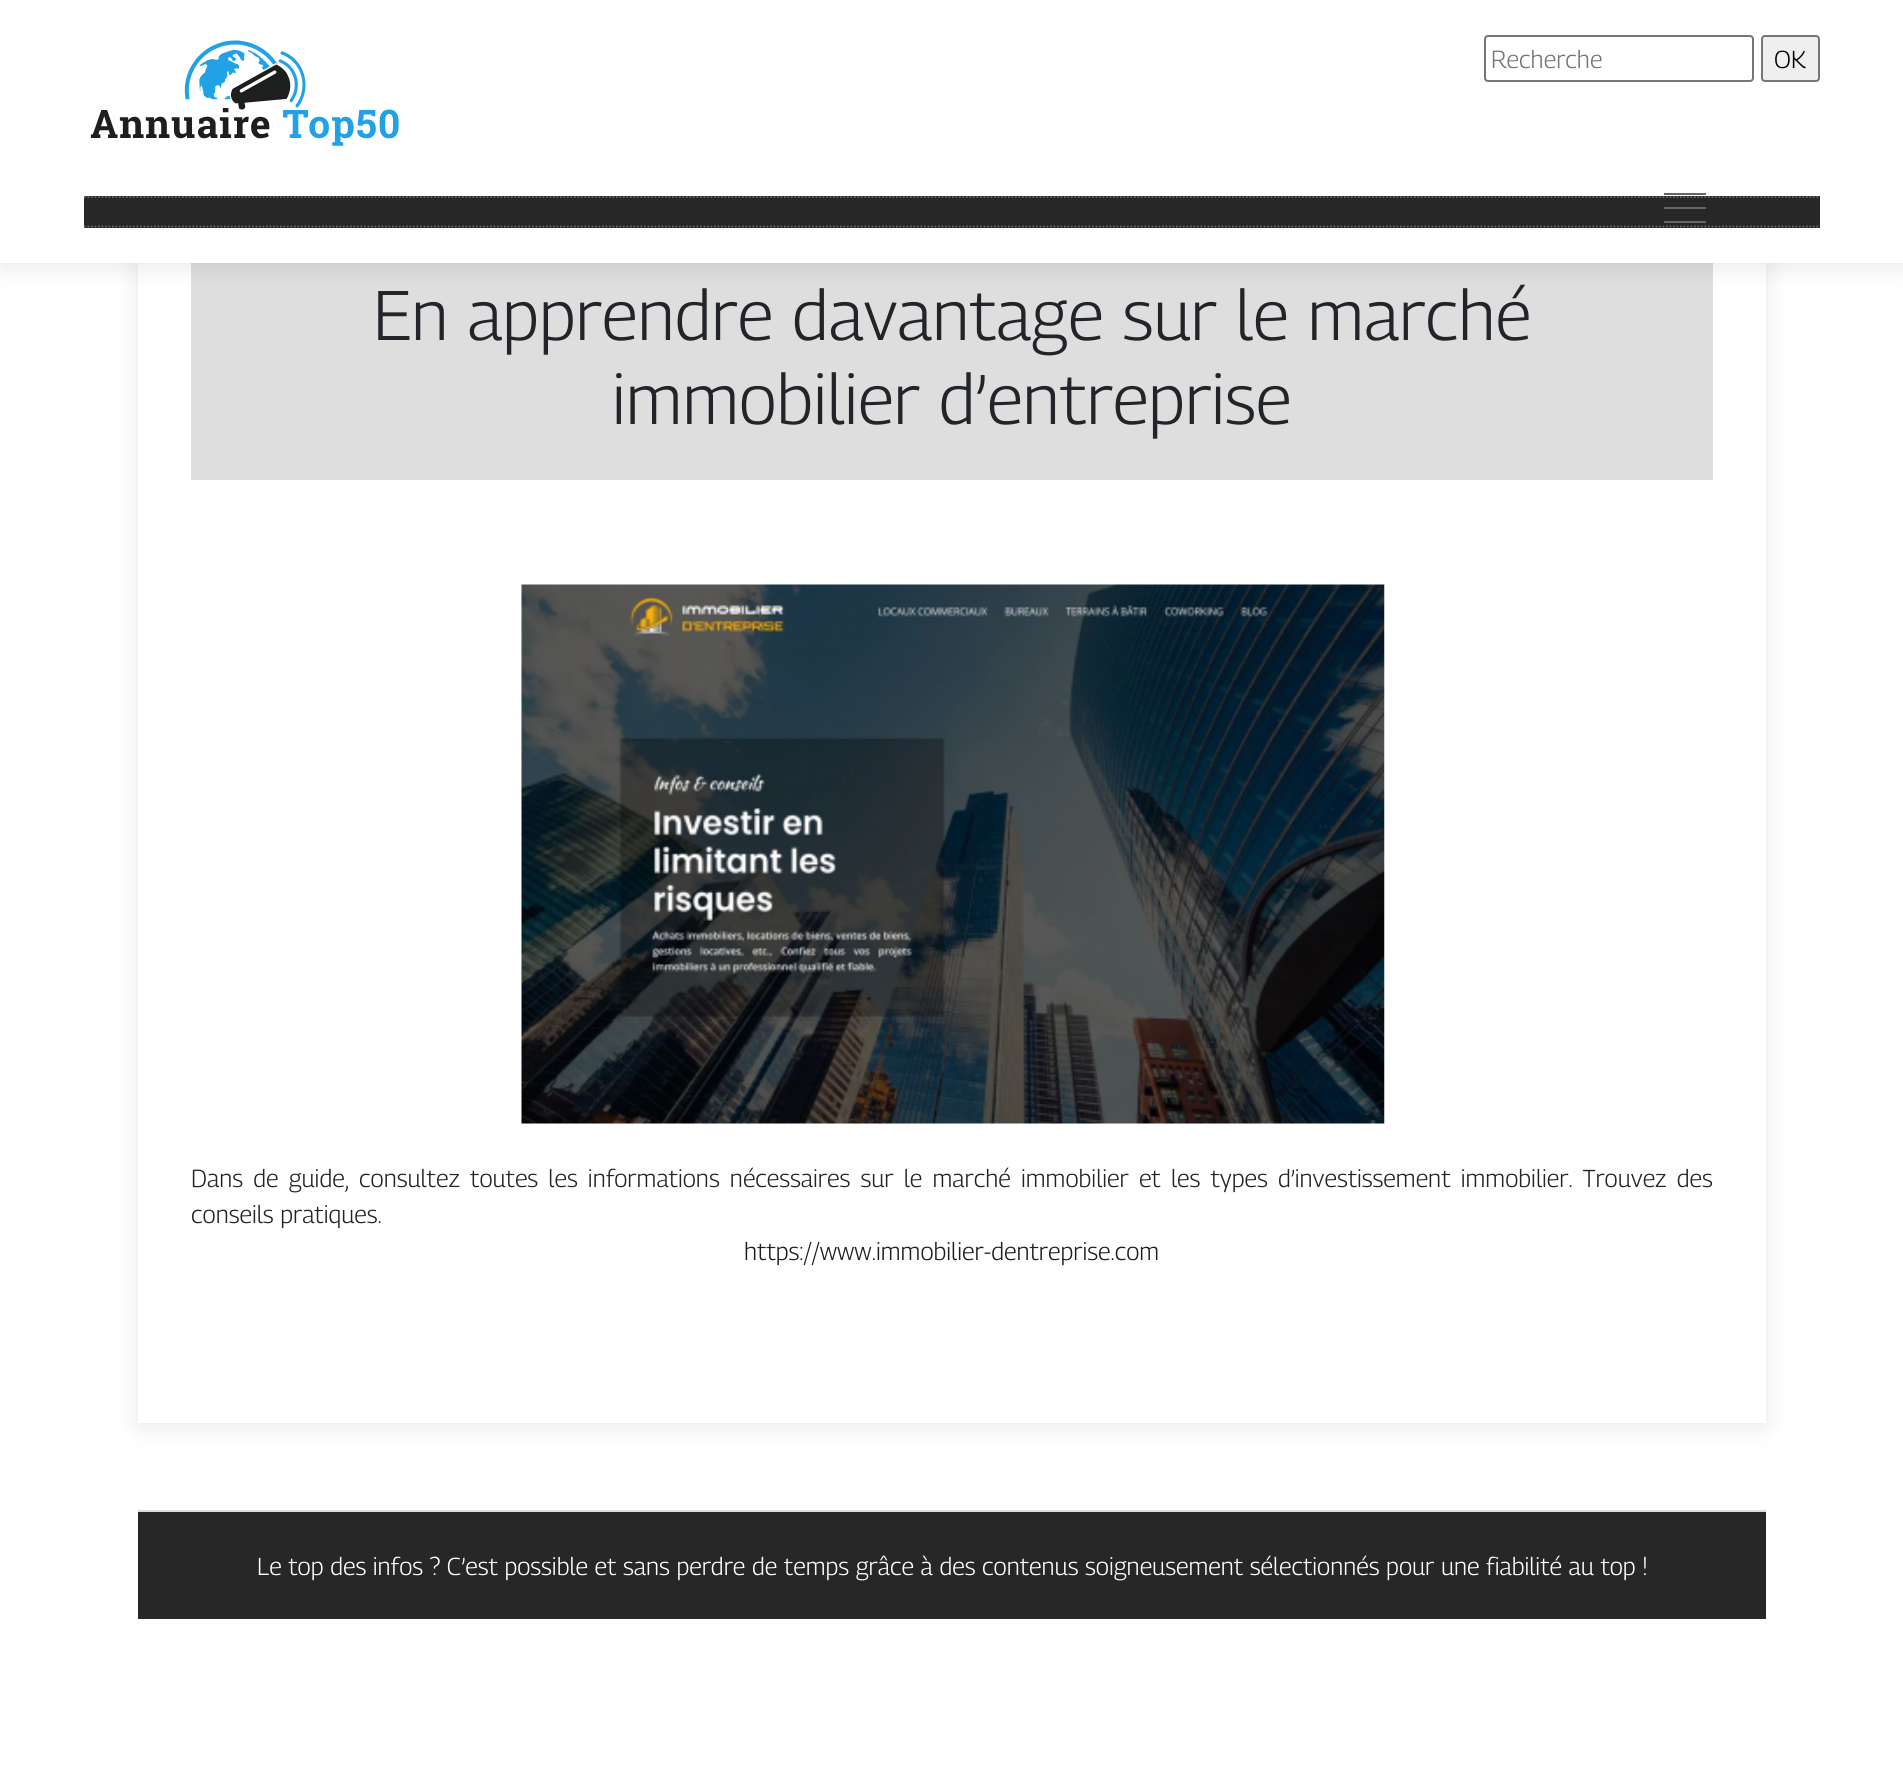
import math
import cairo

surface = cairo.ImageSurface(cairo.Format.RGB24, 1903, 1781)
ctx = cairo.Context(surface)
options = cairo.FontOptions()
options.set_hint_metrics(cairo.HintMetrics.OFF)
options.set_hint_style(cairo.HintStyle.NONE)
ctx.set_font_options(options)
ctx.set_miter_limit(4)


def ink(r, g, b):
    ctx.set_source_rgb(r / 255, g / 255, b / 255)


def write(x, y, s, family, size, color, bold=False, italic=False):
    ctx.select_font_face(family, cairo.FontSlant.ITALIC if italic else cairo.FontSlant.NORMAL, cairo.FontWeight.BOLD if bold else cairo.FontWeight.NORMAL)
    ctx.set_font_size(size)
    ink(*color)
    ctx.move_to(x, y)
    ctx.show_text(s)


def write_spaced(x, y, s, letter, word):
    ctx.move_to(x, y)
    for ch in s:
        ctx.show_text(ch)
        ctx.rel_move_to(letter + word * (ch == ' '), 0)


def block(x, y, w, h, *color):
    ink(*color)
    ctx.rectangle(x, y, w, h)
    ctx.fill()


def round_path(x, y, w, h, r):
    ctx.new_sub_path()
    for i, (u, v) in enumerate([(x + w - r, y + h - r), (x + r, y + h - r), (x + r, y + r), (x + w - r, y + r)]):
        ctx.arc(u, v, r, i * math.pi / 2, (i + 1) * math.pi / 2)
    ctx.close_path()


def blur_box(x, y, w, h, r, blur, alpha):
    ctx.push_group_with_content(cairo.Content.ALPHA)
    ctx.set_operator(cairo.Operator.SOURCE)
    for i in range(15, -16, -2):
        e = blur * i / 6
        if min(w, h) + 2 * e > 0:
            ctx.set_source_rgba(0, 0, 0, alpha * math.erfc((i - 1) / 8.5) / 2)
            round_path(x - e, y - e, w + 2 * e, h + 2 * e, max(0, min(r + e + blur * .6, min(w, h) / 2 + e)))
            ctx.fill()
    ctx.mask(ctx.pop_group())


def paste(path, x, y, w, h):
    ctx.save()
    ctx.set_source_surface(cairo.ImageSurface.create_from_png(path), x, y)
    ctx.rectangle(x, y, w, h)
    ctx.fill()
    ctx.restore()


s1 = dict(family="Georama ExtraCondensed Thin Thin", size=24.5, color=(117, 117, 117))
s2 = dict(family="Georama ExtraCondensed Thin Thin", size=24.5, color=(0, 0, 0))
s3 = dict(family="Georama ExtraCondensed Thin Thin", size=70, color=(33, 37, 41))
s4 = dict(family="Georama ExtraCondensed Thin Thin", size=24.5, color=(33, 37, 41))
s5 = dict(family="Georama ExtraCondensed Thin Thin", size=24.5, color=(29, 30, 30))
s6 = dict(family="Georama ExtraCondensed Thin Thin", size=24.5, color=(255, 255, 255))

ink(255, 255, 255)
ctx.paint()
ink(0, 0, 0)
blur_box(138, 214, 1628, 1212, 0, 11.5, 0.1)
block(138, 263, 1628, 1160, 255, 255, 255)
block(191, 263, 1522, 217, 222, 222, 222)
ink(0, 0, 0)
blur_box(0, 4, 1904, 262, 0, 11.5, 0.1)
block(0, 0, 1903, 263, 255, 255, 255)
paste("pic1.png", 90, 40, 309, 106)
round_path(1485, 36, 268, 45, 3)
ink(118, 118, 118)
ctx.stroke()
write(1491, 68, "Recherche", **s1)
ink(239, 239, 239)
round_path(1762, 36, 57, 45, 3)
ctx.fill_preserve()
ink(118, 118, 118)
ctx.stroke()
write(1774, 68, "OK", **s2)
block(84, 196, 1736, 32, 39, 39, 39)
ctx.new_path()
ctx.move_to(84, 197)
ctx.line_to(1820, 197)
ink(102, 102, 102)
ctx.set_line_width(1.8)
ctx.set_dash([1.75, 1.75])
ctx.stroke()
ctx.new_path()
ctx.move_to(84, 226.5)
ctx.line_to(1820, 226.5)
ctx.stroke()
block(1664, 193, 42, 2, 102, 102, 102)
block(1664, 207, 42, 2, 102, 102, 102)
block(1664, 221, 42, 2, 102, 102, 102)
write(373, 340, "En apprendre davantage sur le marché", **s3)
write(612, 424, "immobilier d’entreprise", **s3)
paste("pic2.png", 521, 584, 864, 540)
ctx.set_font_size(24.5)
write_spaced(191, 1187, "Dans de guide, consultez toutes les informations nécessaires sur le marché immobilier et les types d’investissement immobilier. Trouvez des", 0, 3.6)
write(191, 1223, "conseils pratiques.", **s4)
write(744, 1260, "https://www.immobilier-dentreprise.com", **s5)
block(138, 1512, 1628, 107, 39, 39, 39)
block(138, 1510, 1628, 2, 221, 221, 221)
write(257, 1575, "Le top des infos ? C’est possible et sans perdre de temps grâce à des contenus soigneusement sélectionnés pour une fiabilité au top !", **s6)
surface.write_to_png("screenshot.png")
